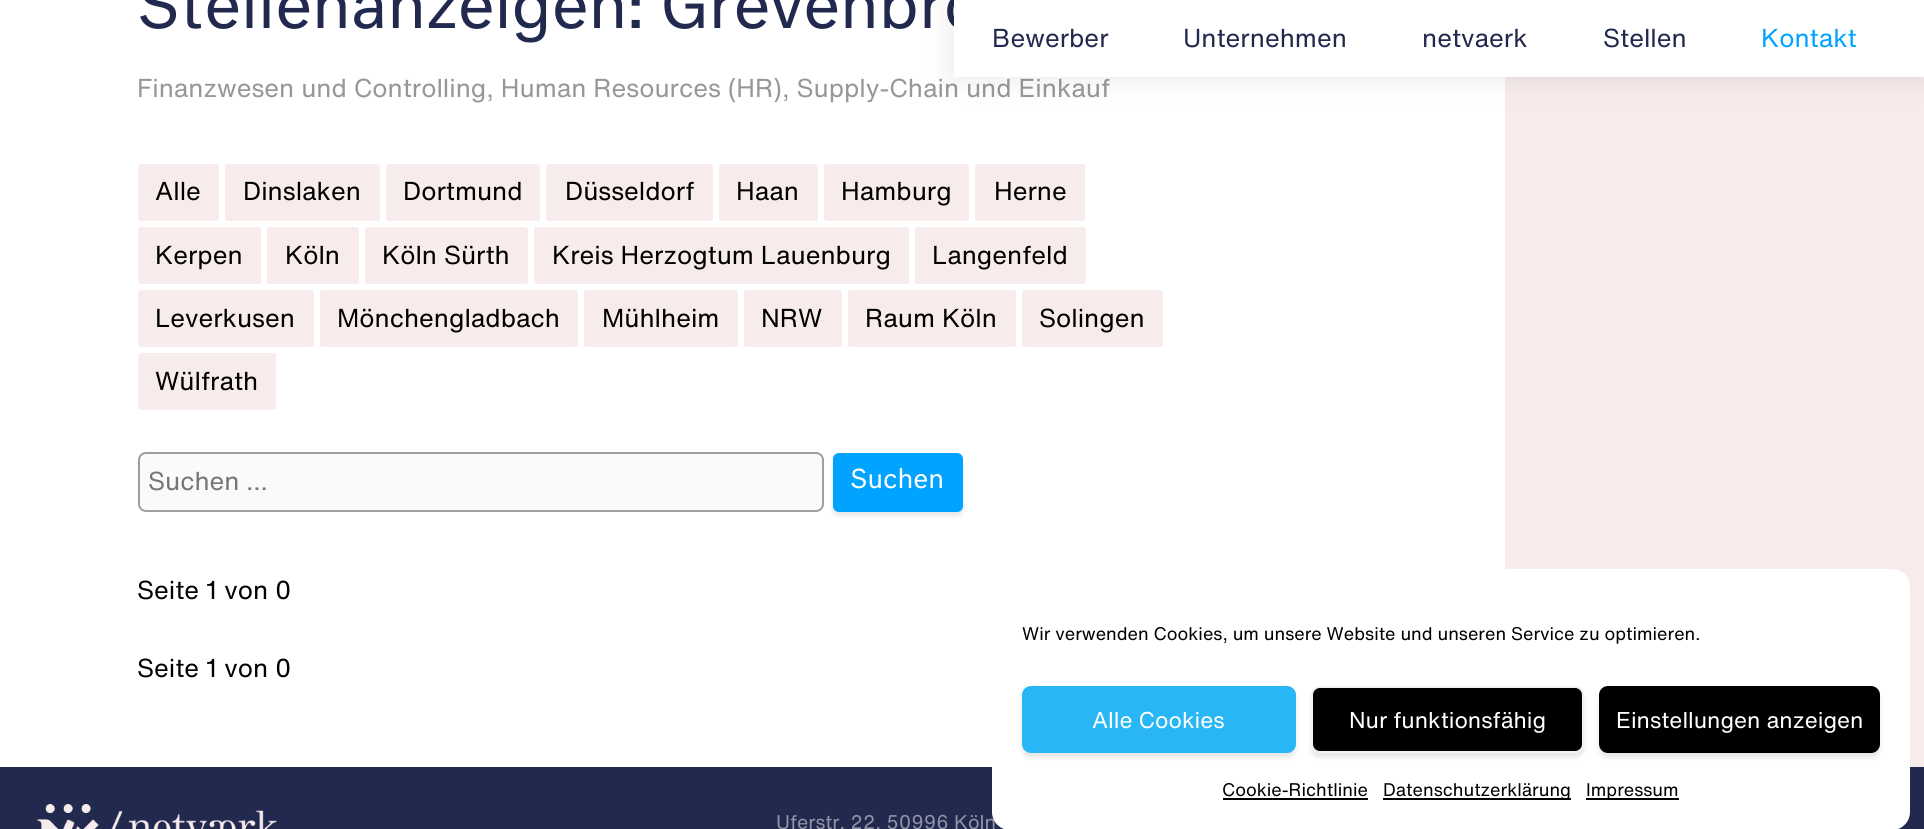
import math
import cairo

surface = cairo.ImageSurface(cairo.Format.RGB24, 1924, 829)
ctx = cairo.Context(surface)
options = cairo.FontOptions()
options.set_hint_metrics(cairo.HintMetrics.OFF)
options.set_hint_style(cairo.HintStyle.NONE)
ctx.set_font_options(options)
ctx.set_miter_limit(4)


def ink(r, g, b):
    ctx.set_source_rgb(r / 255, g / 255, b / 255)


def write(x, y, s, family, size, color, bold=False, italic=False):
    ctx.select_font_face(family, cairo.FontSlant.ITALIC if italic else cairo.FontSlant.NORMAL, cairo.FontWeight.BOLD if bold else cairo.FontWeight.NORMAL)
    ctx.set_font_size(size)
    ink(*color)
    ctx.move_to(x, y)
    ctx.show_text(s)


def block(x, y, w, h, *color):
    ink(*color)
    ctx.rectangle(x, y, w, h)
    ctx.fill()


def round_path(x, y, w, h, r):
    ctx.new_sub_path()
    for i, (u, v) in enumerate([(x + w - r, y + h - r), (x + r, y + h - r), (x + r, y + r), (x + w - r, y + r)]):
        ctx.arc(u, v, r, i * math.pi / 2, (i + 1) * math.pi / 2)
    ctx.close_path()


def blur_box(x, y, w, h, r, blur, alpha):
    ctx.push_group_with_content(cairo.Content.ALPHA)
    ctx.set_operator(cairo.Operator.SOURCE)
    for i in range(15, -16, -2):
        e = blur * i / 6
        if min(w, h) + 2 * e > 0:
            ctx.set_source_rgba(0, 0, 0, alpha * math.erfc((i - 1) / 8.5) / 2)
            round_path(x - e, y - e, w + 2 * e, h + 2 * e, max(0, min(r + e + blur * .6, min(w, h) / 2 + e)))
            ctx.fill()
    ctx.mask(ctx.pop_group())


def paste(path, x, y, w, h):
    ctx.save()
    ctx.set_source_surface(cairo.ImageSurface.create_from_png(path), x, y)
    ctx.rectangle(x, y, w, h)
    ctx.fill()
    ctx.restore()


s1 = dict(family="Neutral", size=62.6, color=(34, 41, 79))
s2 = dict(family="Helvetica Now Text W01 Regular", size=25.5, color=(151, 151, 151))
s3 = dict(family="Helvetica Now Text W01 Regular", size=25.5, color=(0, 0, 0))
s4 = dict(family="Helvetica Now Text W01 Regular", size=25.5, color=(117, 117, 117))
s5 = dict(family="Neutral", size=25.5, color=(255, 255, 255))
s6 = dict(family="Helvetica Now Text W01 Regular", size=19.5, color=(145, 148, 167))
s7 = dict(family="Helvetica Now Text W01 Regular", size=25.5, color=(34, 41, 79))
s8 = dict(family="Helvetica Now Text W01 Regular", size=25.5, color=(0, 163, 255))
s9 = dict(family="Helvetica Now Text W01 Regular", size=18, color=(0, 0, 0))
s10 = dict(family="Helvetica Now Text W01 Regular", size=22.5, color=(255, 255, 255))

ink(255, 255, 255)
ctx.paint()
block(1505, 77, 419, 690, 247, 235, 235)
write(137, 28, "Stellenanzeigen: Grevenbro", **s1)
write(137, 97, "Finanzwesen und Controlling, Human Resources (HR), Supply-Chain und Einkauf", **s2)
ink(247, 235, 235)
round_path(138, 164, 81, 57, 3)
ctx.fill()
write(155, 200, "Alle", **s3)
ink(247, 235, 235)
round_path(225, 164, 155, 57, 3)
ctx.fill()
write(243, 200, "Dinslaken", **s3)
ink(247, 235, 235)
round_path(386, 164, 154, 57, 3)
ctx.fill()
write(403, 200, "Dortmund", **s3)
ink(247, 235, 235)
round_path(546, 164, 167, 57, 3)
ctx.fill()
write(565, 200, "Düsseldorf", **s3)
ink(247, 235, 235)
round_path(719, 164, 99, 57, 3)
ctx.fill()
write(736, 200, "Haan", **s3)
ink(247, 235, 235)
round_path(824, 164, 145, 57, 3)
ctx.fill()
write(841, 200, "Hamburg", **s3)
ink(247, 235, 235)
round_path(975, 164, 110, 57, 3)
ctx.fill()
write(994, 200, "Herne", **s3)
ink(247, 235, 235)
round_path(138, 227, 123, 57, 3)
ctx.fill()
write(155, 264, "Kerpen", **s3)
ink(247, 235, 235)
round_path(267, 227, 92, 57, 3)
ctx.fill()
write(285, 264, "Köln", **s3)
ink(247, 235, 235)
round_path(365, 227, 163, 57, 3)
ctx.fill()
write(382, 264, "Köln Sürth", **s3)
ink(247, 235, 235)
round_path(534, 227, 375, 57, 3)
ctx.fill()
write(552, 264, "Kreis Herzogtum Lauenburg", **s3)
ink(247, 235, 235)
round_path(915, 227, 171, 57, 3)
ctx.fill()
write(932, 264, "Langenfeld", **s3)
ink(247, 235, 235)
round_path(138, 290, 176, 57, 3)
ctx.fill()
write(155, 327, "Leverkusen", **s3)
ink(247, 235, 235)
round_path(320, 290, 258, 57, 3)
ctx.fill()
write(337, 327, "Mönchengladbach", **s3)
ink(247, 235, 235)
round_path(584, 290, 154, 57, 3)
ctx.fill()
write(602, 327, "Mühlheim", **s3)
ink(247, 235, 235)
round_path(744, 290, 98, 57, 3)
ctx.fill()
write(761, 327, "NRW", **s3)
ink(247, 235, 235)
round_path(848, 290, 168, 57, 3)
ctx.fill()
write(865, 327, "Raum Köln", **s3)
ink(247, 235, 235)
round_path(1022, 290, 141, 57, 3)
ctx.fill()
write(1039, 327, "Solingen", **s3)
ink(247, 235, 235)
round_path(138, 353, 138, 57, 3)
ctx.fill()
write(155, 390, "Wülfrath", **s3)
ink(250, 250, 250)
round_path(139, 453, 684, 58, 7)
ctx.fill_preserve()
ink(159, 159, 159)
ctx.stroke()
write(148, 490, "Suchen …", **s4)
ink(209, 209, 209)
blur_box(833, 458, 130, 58, 6, 2, 0.5)
ink(0, 163, 255)
round_path(833, 453, 130, 59, 6)
ctx.fill()
write(850, 488, "Suchen", **s5)
write(137, 599, "Seite 1 von 0", **s3)
write(137, 677, "Seite 1 von 0", **s3)
block(0, 767, 1924, 62, 34, 41, 79)
paste("pic1.png", 37, 804, 240, 25)
write(776, 829, "Uferstr. 22, 50996 Köln", **s6)
ink(0, 0, 0)
blur_box(954, 0, 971, 77, 0, 15, 0.1)
block(954, 0, 970, 77, 255, 255, 255)
write(992, 47, "Bewerber", **s7)
write(1183, 47, "Unternehmen", **s7)
write(1422, 47, "netvaerk", **s7)
write(1603, 47, "Stellen", **s7)
write(1761, 47, "Kontakt", **s8)
ink(255, 255, 255)
round_path(992, 569, 918, 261, 18)
ctx.fill()
write(1022, 640, "Wir verwenden Cookies, um unsere Website und unseren Service zu optimieren.", **s9)
ink(209, 209, 209)
blur_box(1022, 690, 274, 68, 9, 2, 0.5)
ink(41, 182, 246)
round_path(1023, 687, 272, 65, 8)
ctx.fill_preserve()
ctx.stroke()
write(1092, 728, "Alle Cookies", **s10)
ink(209, 209, 209)
blur_box(1311, 690, 273, 68, 9, 2, 0.5)
ink(0, 0, 0)
round_path(1312, 687, 271, 65, 8)
ctx.fill_preserve()
ink(241, 241, 241)
ctx.stroke()
write(1349, 728, "Nur funktionsfähig", **s10)
ink(209, 209, 209)
blur_box(1599, 690, 281, 68, 9, 2, 0.5)
ink(0, 0, 0)
round_path(1600, 687, 279, 65, 8)
ctx.fill_preserve()
ctx.stroke()
write(1616, 728, "Einstellungen anzeigen", **s10)
write(1222, 796, "Cookie-Richtlinie", **s9)
block(1223, 798, 145, 2, 0, 0, 0)
block(1383, 798, 188, 2, 0, 0, 0)
write(1383, 796, "Datenschutzerklärung", **s9)
block(1586, 798, 93, 2, 0, 0, 0)
write(1586, 796, "Impressum", **s9)
surface.write_to_png("screenshot.png")
